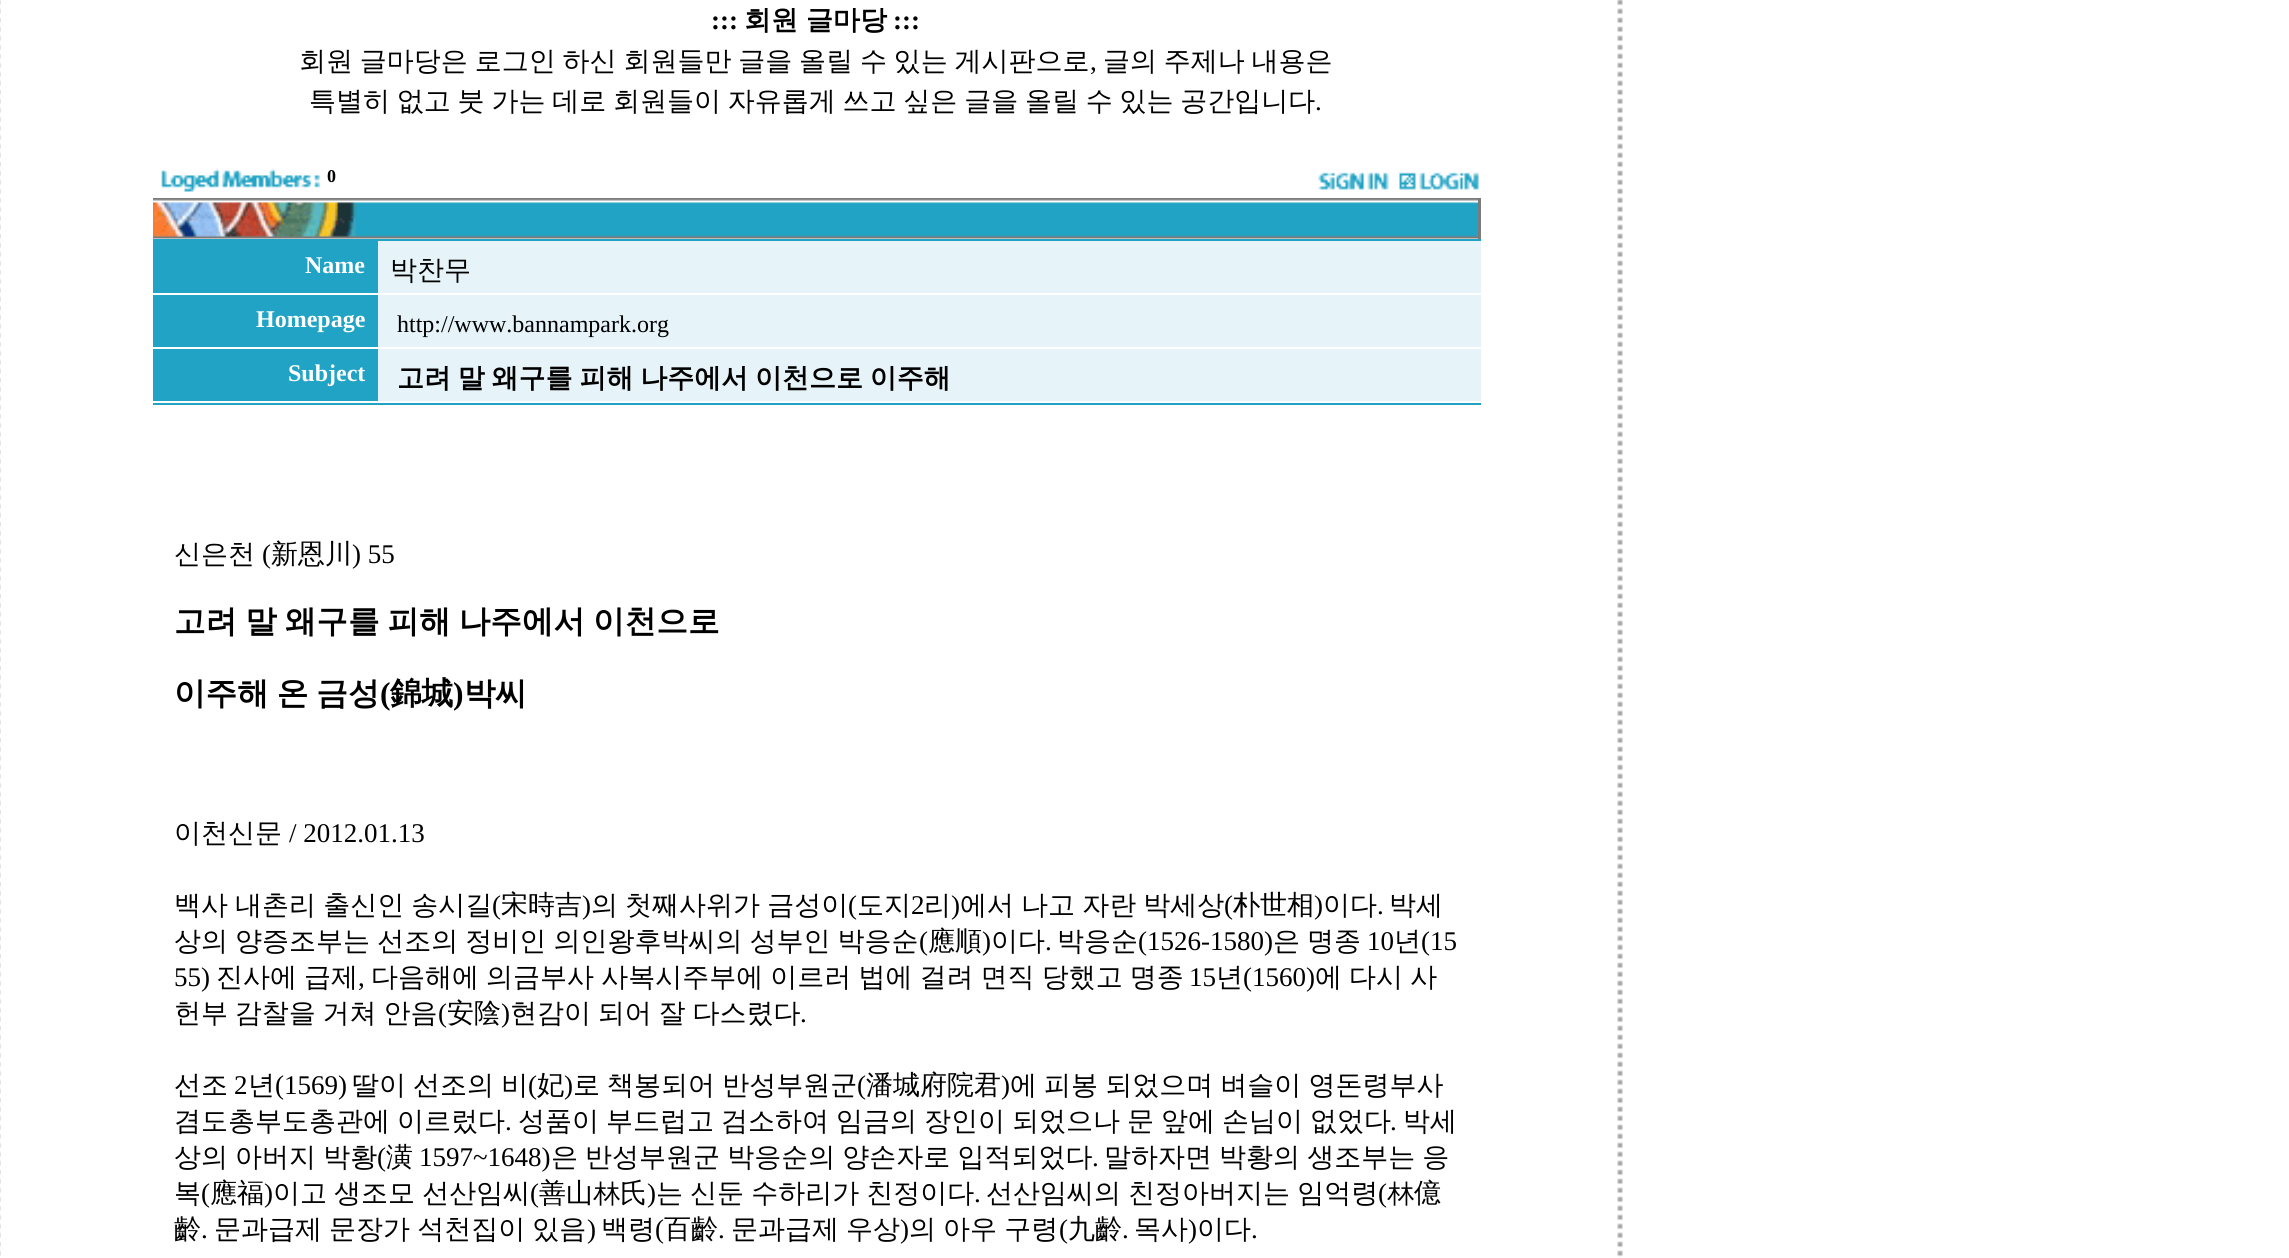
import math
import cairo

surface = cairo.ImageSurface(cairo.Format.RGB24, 2289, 1258)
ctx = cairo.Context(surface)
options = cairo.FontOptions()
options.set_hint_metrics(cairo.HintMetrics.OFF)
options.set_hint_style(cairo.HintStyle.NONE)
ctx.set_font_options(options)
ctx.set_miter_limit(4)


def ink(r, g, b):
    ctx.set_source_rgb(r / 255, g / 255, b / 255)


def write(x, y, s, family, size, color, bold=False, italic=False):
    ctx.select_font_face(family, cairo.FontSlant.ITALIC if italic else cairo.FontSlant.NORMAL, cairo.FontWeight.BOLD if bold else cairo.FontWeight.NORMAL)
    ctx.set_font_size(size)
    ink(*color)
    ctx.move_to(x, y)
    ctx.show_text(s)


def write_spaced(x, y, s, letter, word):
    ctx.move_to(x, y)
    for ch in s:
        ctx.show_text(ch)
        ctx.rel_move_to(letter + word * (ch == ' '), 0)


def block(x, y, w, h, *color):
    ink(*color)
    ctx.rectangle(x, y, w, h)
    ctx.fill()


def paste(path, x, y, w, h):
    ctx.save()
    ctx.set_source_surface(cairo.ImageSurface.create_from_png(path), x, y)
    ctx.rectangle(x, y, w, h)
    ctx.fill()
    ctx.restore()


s1 = dict(family="Liberation Serif", size=27, color=(0, 0, 0), bold=True)
s2 = dict(family="WenQuanYi Zen Hei", size=27, color=(0, 0, 0), bold=True)
s3 = dict(family="Liberation Serif", size=27, color=(0, 0, 0))
s4 = dict(family="Liberation Serif", size=18, color=(0, 0, 0), bold=True)
s5 = dict(family="Liberation Serif", size=24, color=(255, 255, 255), bold=True)
s6 = dict(family="WenQuanYi Zen Hei Medium", size=27, color=(0, 0, 0))
s7 = dict(family="Liberation Serif", size=24, color=(0, 0, 0))
s8 = dict(family="Liberation Serif", size=31.6, color=(0, 0, 0), bold=True)
s9 = dict(family="WenQuanYi Zen Hei", size=31.6, color=(0, 0, 0), bold=True)

ink(255, 255, 255)
ctx.paint()
paste("pic1.png", 0, 0, 1623, 1257)
write(711, 29, ":::", **s1)
write(744, 29, "회원 글마당", **s2)
write(893, 29, ":::", **s1)
ctx.select_font_face("WenQuanYi Zen Hei Medium")
write_spaced(299, 70, "회원 글마당은 로그인 하신 회원들만 글을 올릴 수 있는 게시판으로", 0, -1.25)
write(1090, 70, ",", **s3)
ctx.select_font_face("WenQuanYi Zen Hei Medium")
write_spaced(1103, 70, "글의 주제나 내용은", 0, -1.3)
write_spaced(309, 110, "특별히 없고 붓 가는 데로 회원들이 자유롭게 쓰고 싶은 글을 올릴 수 있는 공간입니다", 0, -1.3)
write(1315, 110, ".", **s3)
paste("pic2.png", 161, 168, 160, 24)
write(327, 182, "0", **s4)
paste("pic3.png", 1318, 172, 71, 18)
paste("pic4.png", 1399, 172, 80, 18)
paste("pic5.png", 153, 198, 1325, 41)
block(1478, 198, 3, 41, 123, 123, 123)
block(378, 241, 1103, 160, 230, 244, 249)
block(153, 239, 1328, 2, 33, 163, 197)
block(153, 241, 225, 52, 33, 163, 197)
write(305, 273, "Name", **s5)
write(390, 279, "박찬무", **s6)
block(378, 293, 1103, 2, 255, 255, 255)
block(153, 295, 225, 52, 33, 163, 197)
write(256, 327, "Homepage", **s5)
write(397, 332, "http://www.bannampark.org", **s7)
block(378, 347, 1103, 2, 255, 255, 255)
block(153, 349, 225, 52, 33, 163, 197)
write(288, 381, "Subject", **s5)
ctx.select_font_face("WenQuanYi Zen Hei", cairo.FontSlant.NORMAL, cairo.FontWeight.BOLD)
ctx.set_font_size(27)
ink(0, 0, 0)
write_spaced(397, 387, "고려 말 왜구를 피해 나주에서 이천으로 이주해", 0, -1.3)
block(153, 403, 1328, 2, 33, 163, 197)
write(174, 563, "신은천", **s6)
write(262, 563, "(", **s3)
write(271, 563, "新恩川", **s6)
write(352, 563, ") 55", **s3)
ctx.select_font_face("WenQuanYi Zen Hei", cairo.FontSlant.NORMAL, cairo.FontWeight.BOLD)
ctx.set_font_size(31.6)
write_spaced(174, 632, "고려 말 왜구를 피해 나주에서 이천으로", 0, -1.5)
write_spaced(174, 704, "이주해 온 금성", 0, -1.5)
write(380, 704, "(", **s8)
write(390, 704, "錦城", **s9)
write(453, 704, ")", **s8)
write(464, 704, "박씨", **s9)
write(174, 842, "이천신문", **s6)
write(289, 842, "/ 2012.01.13", **s3)
ctx.select_font_face("WenQuanYi Zen Hei Medium")
write_spaced(174, 914, "백사 내촌리 출신인 송시길", 0, -1)
write(492, 914, "(", **s3)
write(501, 914, "宋時吉", **s6)
write(582, 914, ")", **s3)
ctx.select_font_face("WenQuanYi Zen Hei Medium")
write_spaced(591, 914, "의 첫째사위가 금성이", 0, -1)
write(848, 914, "(", **s3)
write(857, 914, "도지", **s6)
write(911, 914, "2", **s3)
write(924, 914, "리", **s6)
write(951, 914, ")", **s3)
ctx.select_font_face("WenQuanYi Zen Hei Medium")
write_spaced(960, 914, "에서 나고 자란 박세상", 0, -1)
write(1224, 914, "(", **s3)
write(1233, 914, "朴世相", **s6)
write(1314, 914, ")", **s3)
write(1323, 914, "이다", **s6)
write(1377, 914, ".", **s3)
write(1389, 914, "박세", **s6)
write_spaced(174, 950, "상의 양증조부는 선조의 정비인 의인왕후박씨의 성부인 박응순", 0, -1)
write(919, 950, "(", **s3)
write(928, 950, "應順", **s6)
write(982, 950, ")", **s3)
write(991, 950, "이다", **s6)
write(1045, 950, ".", **s3)
write(1057, 950, "박응순", **s6)
write(1138, 950, "(1526-1580)", **s3)
ctx.select_font_face("WenQuanYi Zen Hei Medium")
write_spaced(1273, 950, "은 명종", 0, -1)
write(1367, 950, "10", **s3)
write(1394, 950, "년", **s6)
write(1421, 950, "(15", **s3)
write(174, 986, "55)", **s3)
ctx.select_font_face("WenQuanYi Zen Hei Medium")
write_spaced(216, 986, "진사에 급제", 0, -1)
write(358, 986, ",", **s3)
ctx.select_font_face("WenQuanYi Zen Hei Medium")
write_spaced(371, 986, "다음해에 의금부사 사복시주부에 이르러 법에 걸려 면직 당했고 명종", 0, -1)
write(1189, 986, "15", **s3)
write(1216, 986, "년", **s6)
write(1243, 986, "(1560)", **s3)
ctx.select_font_face("WenQuanYi Zen Hei Medium")
write_spaced(1315, 986, "에 다시 사", 0, -1)
write_spaced(174, 1022, "헌부 감찰을 거쳐 안음", 0, -1.3)
write(438, 1022, "(", **s3)
write(447, 1022, "安陰", **s6)
write(501, 1022, ")", **s3)
ctx.select_font_face("WenQuanYi Zen Hei Medium")
write_spaced(510, 1022, "현감이 되어 잘 다스렸다", 0, -1.3)
write(800, 1022, ".", **s3)
write(174, 1094, "선조", **s6)
write(234, 1094, "2", **s3)
write(248, 1094, "년", **s6)
write(275, 1094, "(1569)", **s3)
ctx.select_font_face("WenQuanYi Zen Hei Medium")
write_spaced(352, 1094, "딸이 선조의 비", 0, -1)
write(528, 1094, "(", **s3)
write(537, 1094, "妃", **s6)
write(564, 1094, ")", **s3)
ctx.select_font_face("WenQuanYi Zen Hei Medium")
write_spaced(573, 1094, "로 책봉되어 반성부원군", 0, -1)
write(857, 1094, "(", **s3)
write(866, 1094, "潘城府院君", **s6)
write(1001, 1094, ")", **s3)
ctx.select_font_face("WenQuanYi Zen Hei Medium")
write_spaced(1010, 1094, "에 피봉 되었으며 벼슬이 영돈령부사", 0, -1)
write_spaced(174, 1130, "겸도총부도총관에 이르렀다", 0, -1.1)
write(505, 1130, ".", **s3)
ctx.select_font_face("WenQuanYi Zen Hei Medium")
write_spaced(518, 1130, "성품이 부드럽고 검소하여 임금의 장인이 되었으나 문 앞에 손님이 없었다", 0, -1.1)
write(1390, 1130, ".", **s3)
write(1403, 1130, "박세", **s6)
write_spaced(174, 1166, "상의 아버지 박황", 0, -1)
write(377, 1166, "(", **s3)
write(386, 1166, "潢", **s6)
write(419, 1166, "1597~1648)", **s3)
ctx.select_font_face("WenQuanYi Zen Hei Medium")
write_spaced(551, 1166, "은 반성부원군 박응순의 양손자로 입적되었다", 0, -1)
write(1092, 1166, ".", **s3)
ctx.select_font_face("WenQuanYi Zen Hei Medium")
write_spaced(1104, 1166, "말하자면 박황의 생조부는 응", 0, -1)
write(174, 1202, "복", **s6)
write(201, 1202, "(", **s3)
write(210, 1202, "應福", **s6)
write(264, 1202, ")", **s3)
ctx.select_font_face("WenQuanYi Zen Hei Medium")
write_spaced(273, 1202, "이고 생조모 선산임씨", 0, -1)
write(530, 1202, "(", **s3)
write(539, 1202, "善山林氏", **s6)
write(647, 1202, ")", **s3)
ctx.select_font_face("WenQuanYi Zen Hei Medium")
write_spaced(656, 1202, "는 신둔 수하리가 친정이다", 0, -1)
write(974, 1202, ".", **s3)
ctx.select_font_face("WenQuanYi Zen Hei Medium")
write_spaced(986, 1202, "선산임씨의 친정아버지는 임억령", 0, -1)
write(1378, 1202, "(", **s3)
write(1387, 1202, "林億", **s6)
write(174, 1238, "齡", **s6)
write(201, 1238, ".", **s3)
ctx.select_font_face("WenQuanYi Zen Hei Medium")
write_spaced(214, 1238, "문과급제 문장가 석천집이 있음", 0, -1)
write(587, 1238, ")", **s3)
write(601, 1238, "백령", **s6)
write(655, 1238, "(", **s3)
write(664, 1238, "百齡", **s6)
write(718, 1238, ".", **s3)
ctx.select_font_face("WenQuanYi Zen Hei Medium")
write_spaced(731, 1238, "문과급제 우상", 0, -1)
write(900, 1238, ")", **s3)
ctx.select_font_face("WenQuanYi Zen Hei Medium")
write_spaced(909, 1238, "의 아우 구령", 0, -1)
write(1059, 1238, "(", **s3)
write(1068, 1238, "九齡", **s6)
write(1122, 1238, ".", **s3)
write(1134, 1238, "목사", **s6)
write(1188, 1238, ")", **s3)
write(1197, 1238, "이다", **s6)
write(1251, 1238, ".", **s3)
surface.write_to_png("screenshot.png")
